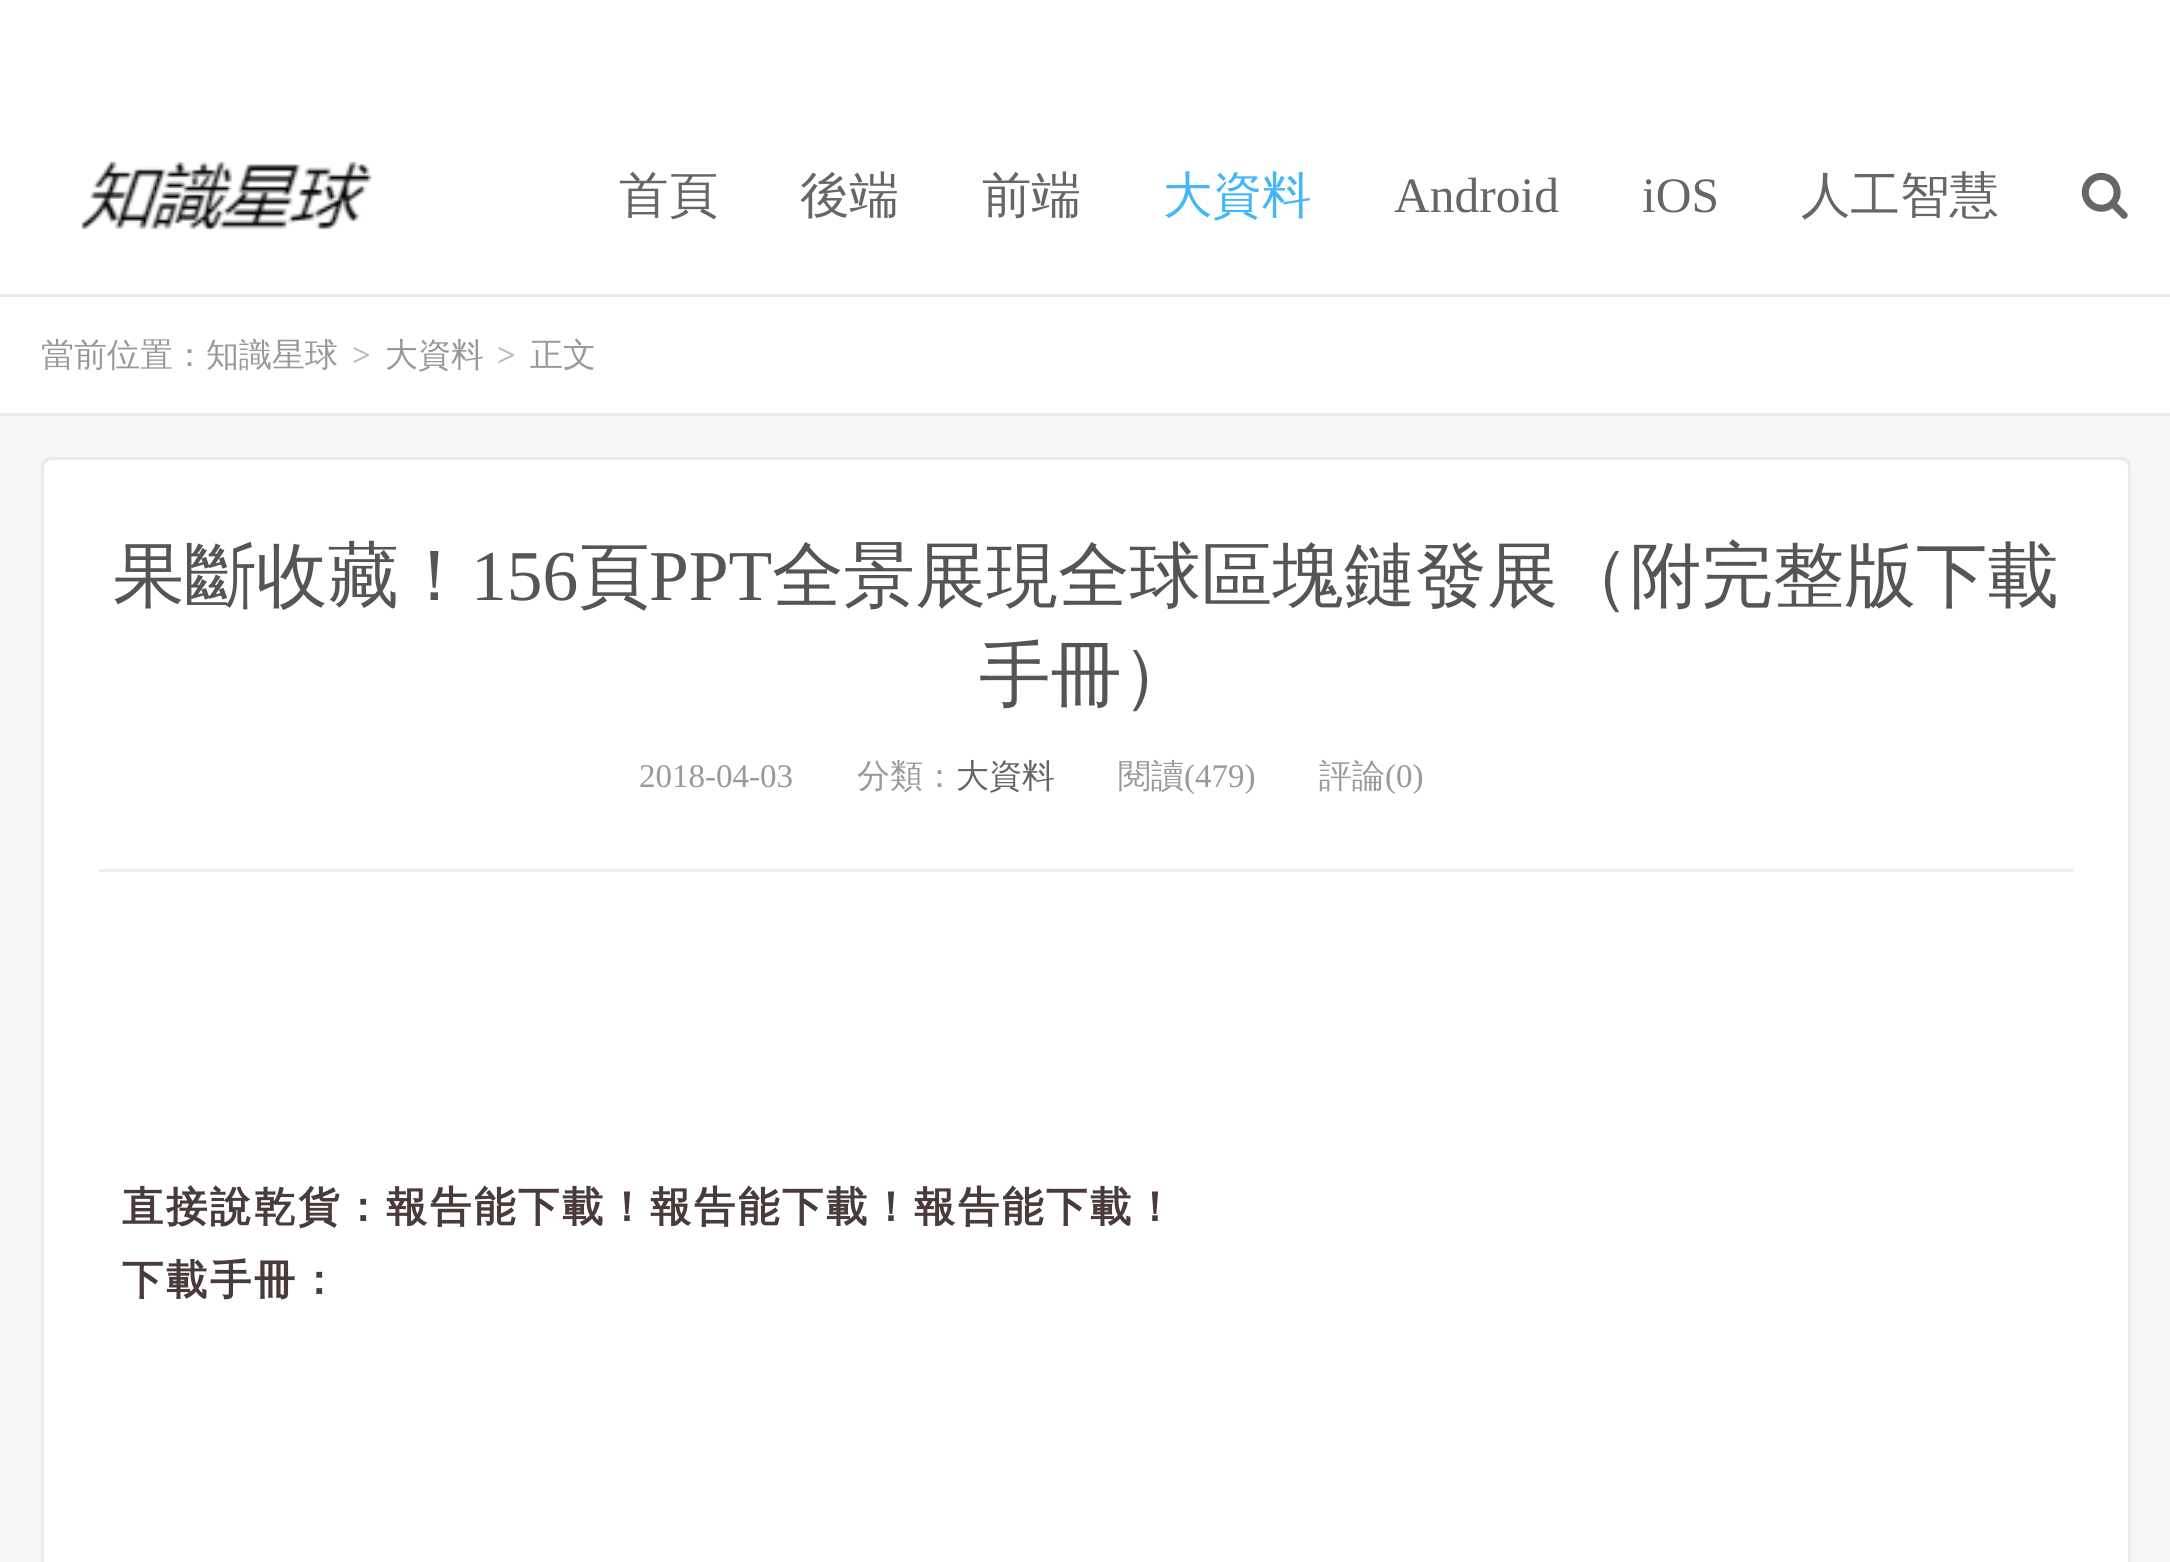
import math
import cairo

surface = cairo.ImageSurface(cairo.Format.RGB24, 2170, 1562)
ctx = cairo.Context(surface)
options = cairo.FontOptions()
options.set_hint_metrics(cairo.HintMetrics.OFF)
options.set_hint_style(cairo.HintStyle.NONE)
ctx.set_font_options(options)
ctx.set_miter_limit(4)


def ink(r, g, b):
    ctx.set_source_rgb(r / 255, g / 255, b / 255)


def write(x, y, s, family, size, color, bold=False, italic=False):
    ctx.select_font_face(family, cairo.FontSlant.ITALIC if italic else cairo.FontSlant.NORMAL, cairo.FontWeight.BOLD if bold else cairo.FontWeight.NORMAL)
    ctx.set_font_size(size)
    ink(*color)
    ctx.move_to(x, y)
    ctx.show_text(s)


def write_spaced(x, y, s, letter, word):
    ctx.move_to(x, y)
    for ch in s:
        ctx.show_text(ch)
        ctx.rel_move_to(letter + word * (ch == ' '), 0)


def block(x, y, w, h, *color):
    ink(*color)
    ctx.rectangle(x, y, w, h)
    ctx.fill()


def round_path(x, y, w, h, r):
    ctx.new_sub_path()
    for i, (u, v) in enumerate([(x + w - r, y + h - r), (x + r, y + h - r), (x + r, y + r), (x + w - r, y + r)]):
        ctx.arc(u, v, r, i * math.pi / 2, (i + 1) * math.pi / 2)
    ctx.close_path()


def paste(path, x, y, w, h):
    ctx.save()
    ctx.set_source_surface(cairo.ImageSurface.create_from_png(path), x, y)
    ctx.rectangle(x, y, w, h)
    ctx.fill()
    ctx.restore()


s1 = dict(family="WenQuanYi Zen Hei Medium", size=49.5, color=(102, 102, 102))
s2 = dict(family="WenQuanYi Zen Hei Medium", size=49.5, color=(69, 182, 247))
s3 = dict(family="Liberation Serif", size=49.5, color=(102, 102, 102))
s4 = dict(family="WenQuanYi Zen Hei Medium", size=33, color=(153, 153, 153))
s5 = dict(family="Liberation Serif", size=33, color=(187, 187, 187), bold=True)
s6 = dict(family="WenQuanYi Zen Hei Medium", size=71.5, color=(85, 85, 85))
s7 = dict(family="Liberation Serif", size=71.5, color=(85, 85, 85))
s8 = dict(family="Liberation Serif", size=33, color=(153, 153, 153))
s9 = dict(family="WenQuanYi Zen Hei Medium", size=33, color=(102, 102, 102))

ink(246, 246, 246)
ctx.paint()
block(0, 0, 2170, 294, 255, 255, 255)
block(0, 294, 2170, 3, 235, 235, 235)
paste("pic1.png", 81, 161, 291, 70)
write(619, 212, "首頁", **s1)
write(800, 212, "後端", **s1)
write(982, 212, "前端", **s1)
write(1163, 212, "大資料", **s2)
write(1394, 212, "Android", **s3)
write(1642, 212, "iOS", **s3)
write(1801, 212, "人工智慧", **s1)
paste("pic2.png", 2081, 172, 47, 47)
block(0, 297, 2170, 116, 255, 255, 255)
block(0, 413, 2170, 3, 235, 235, 235)
write(41, 366, "當前位置：知識星球", **s4)
write(352, 366, ">", **s5)
write(385, 366, "大資料", **s4)
write(497, 366, ">", **s5)
write(530, 366, "正文", **s4)
ink(255, 255, 255)
round_path(42.5, 458.5, 2087, 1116, 9.5)
ctx.fill_preserve()
ink(234, 234, 234)
ctx.set_line_width(3)
ctx.stroke()
block(99, 869, 1975, 3, 238, 238, 238)
write(113, 600, "果斷收藏！", **s6)
write(471, 600, "156", **s7)
write(578, 600, "頁", **s6)
write(649, 600, "PPT", **s7)
write(772, 600, "全景展現全球區塊鏈發展（附完整版下載", **s6)
write(979, 699, "手冊）", **s6)
write(639, 787, "2018-04-03", **s8)
write(857, 787, "分類：", **s4)
write(956, 787, "大資料", **s9)
write(1118, 787, "閱讀", **s4)
write(1184, 787, "(479)", **s8)
write(1319, 787, "評論", **s4)
write(1385, 787, "(0)", **s8)
ctx.select_font_face("WenQuanYi Zen Hei", cairo.FontSlant.NORMAL, cairo.FontWeight.BOLD)
ctx.set_font_size(41.25)
ink(73, 59, 59)
write_spaced(122, 1221, "直接說乾貨：報告能下載！報告能下載！報告能下載！", 2.75, 0)
write_spaced(122, 1294, "下載手冊：", 2.75, 0)
surface.write_to_png("screenshot.png")
